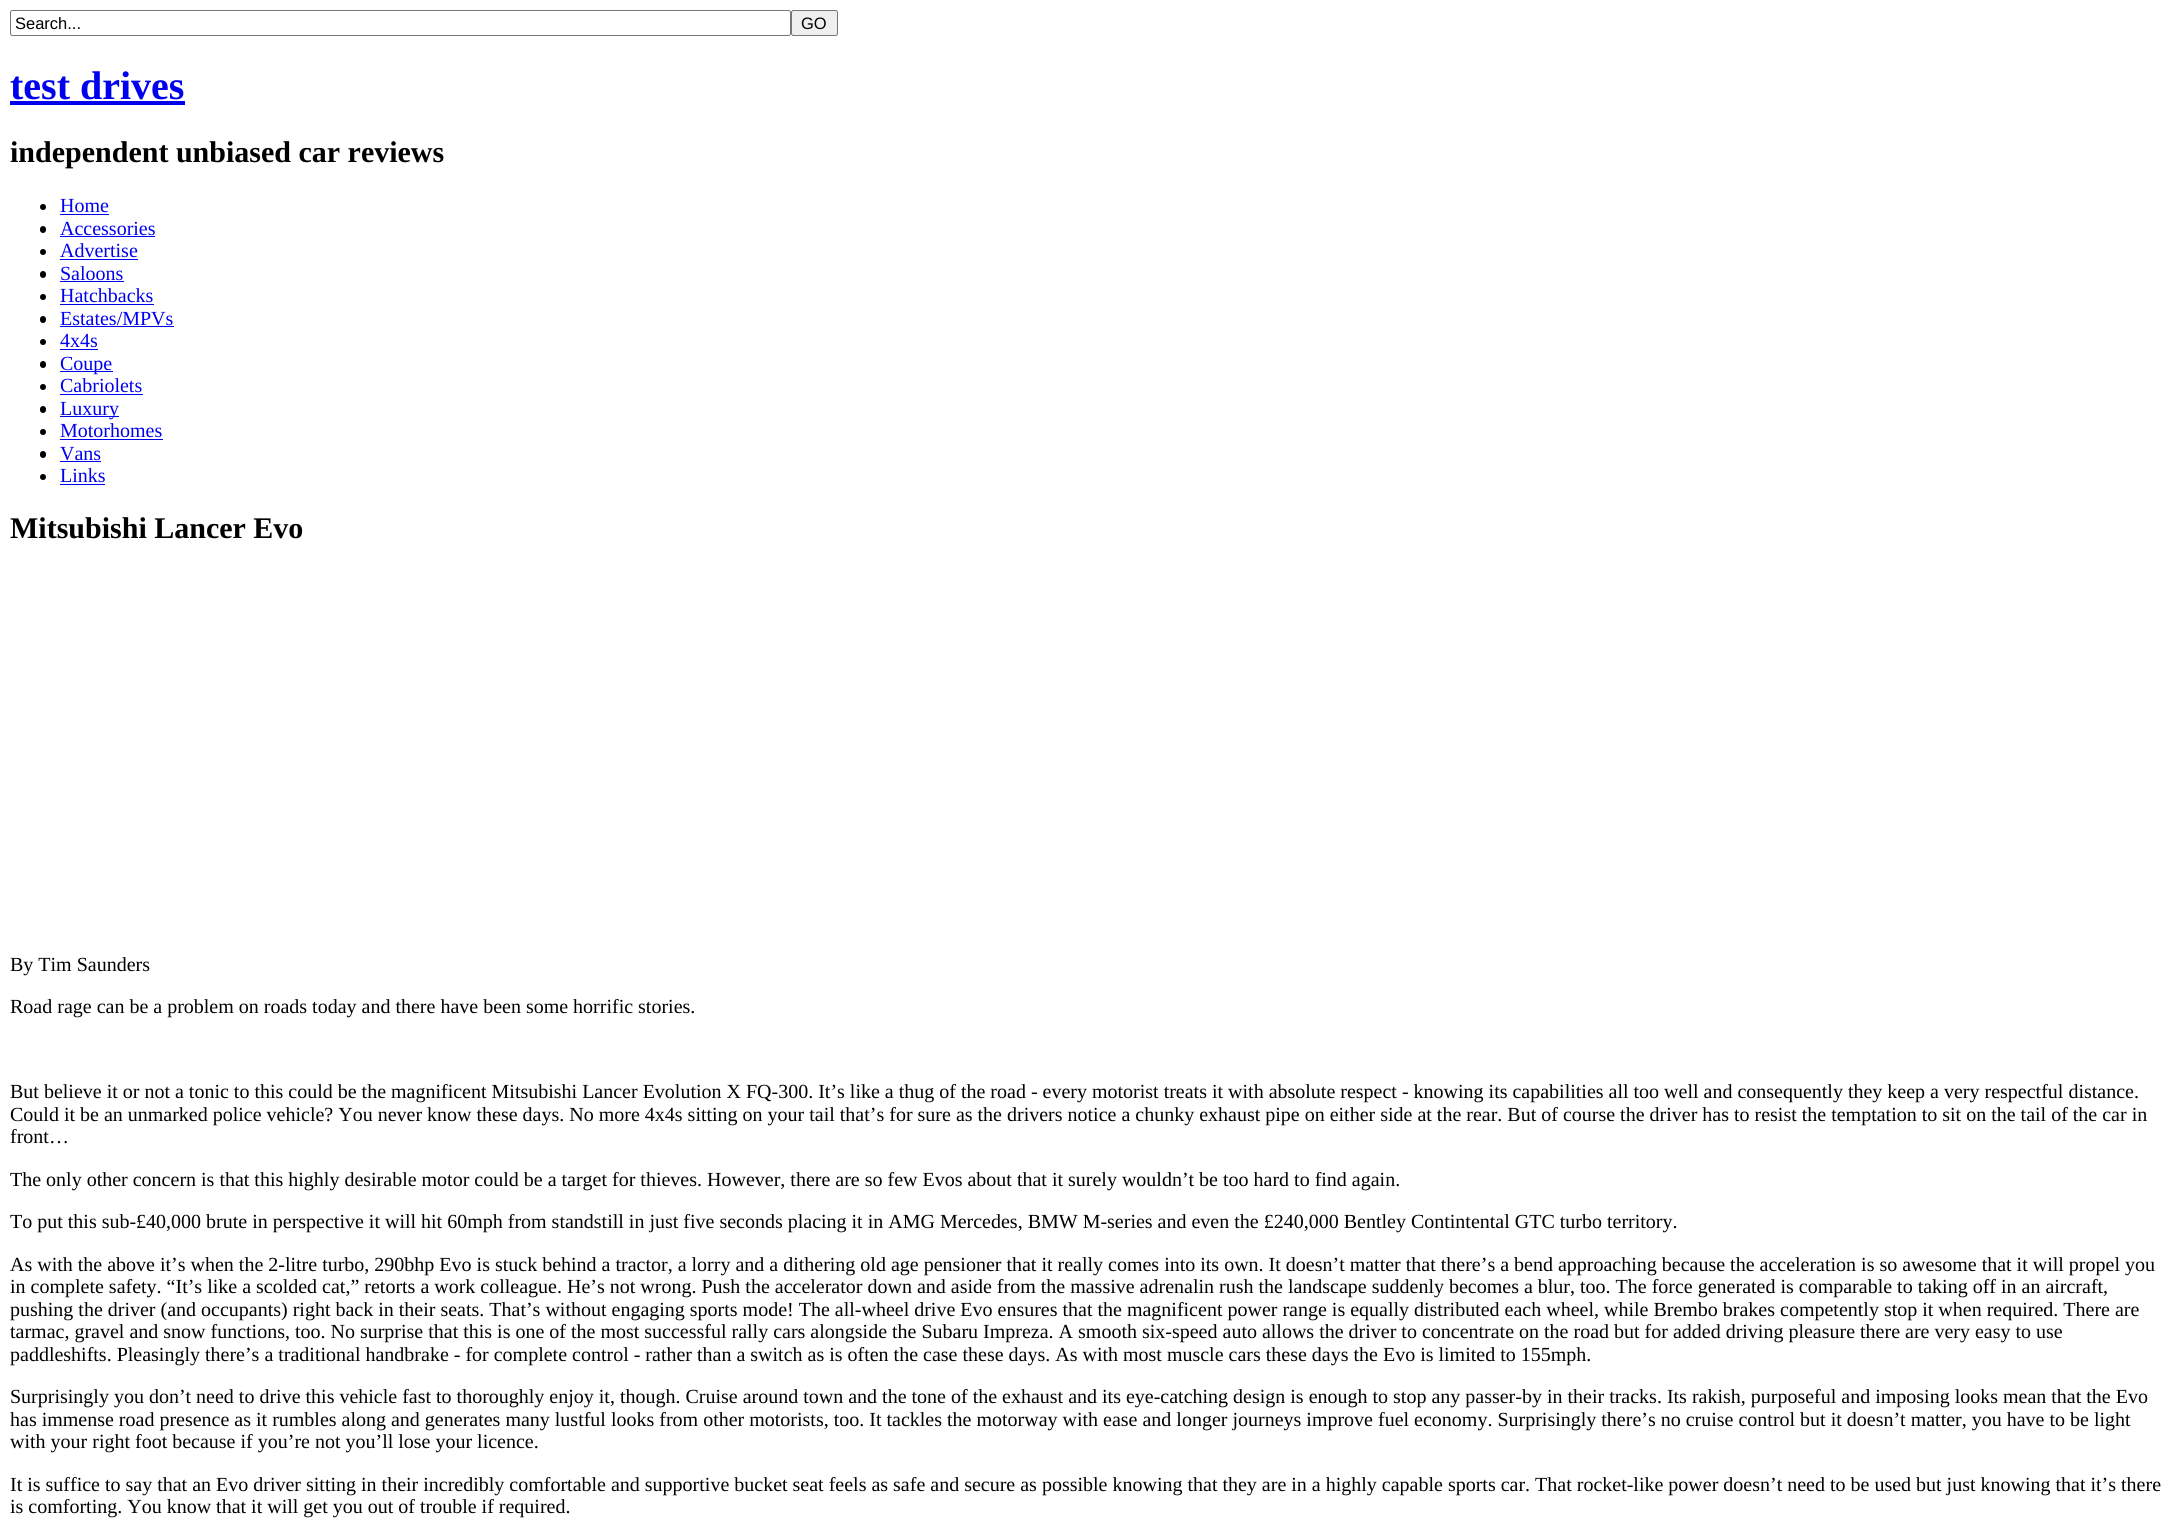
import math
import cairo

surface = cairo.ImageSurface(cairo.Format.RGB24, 2173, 1529)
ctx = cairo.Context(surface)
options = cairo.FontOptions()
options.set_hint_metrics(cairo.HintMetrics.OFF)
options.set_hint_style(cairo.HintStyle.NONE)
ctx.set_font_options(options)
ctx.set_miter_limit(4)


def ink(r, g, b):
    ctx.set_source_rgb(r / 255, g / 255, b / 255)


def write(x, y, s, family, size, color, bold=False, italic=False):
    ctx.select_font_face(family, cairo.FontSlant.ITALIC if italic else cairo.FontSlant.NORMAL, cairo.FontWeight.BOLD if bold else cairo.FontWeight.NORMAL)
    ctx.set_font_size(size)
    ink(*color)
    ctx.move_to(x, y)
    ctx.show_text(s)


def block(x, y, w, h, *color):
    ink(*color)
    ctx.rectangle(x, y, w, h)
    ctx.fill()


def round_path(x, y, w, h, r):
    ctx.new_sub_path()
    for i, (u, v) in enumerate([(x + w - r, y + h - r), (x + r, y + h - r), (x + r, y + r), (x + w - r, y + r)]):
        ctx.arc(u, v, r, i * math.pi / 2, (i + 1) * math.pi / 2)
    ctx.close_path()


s1 = dict(family="Liberation Sans", size=16.5, color=(0, 0, 0))
s2 = dict(family="Liberation Serif", size=40, color=(0, 0, 238), bold=True)
s3 = dict(family="Liberation Serif", size=30, color=(0, 0, 0), bold=True)
s4 = dict(family="Liberation Serif", size=20, color=(0, 0, 238))
s5 = dict(family="Liberation Serif", size=20, color=(0, 0, 0))

ink(255, 255, 255)
ctx.paint()
round_path(10.5, 10.5, 780, 25, 2)
ink(118, 118, 118)
ctx.set_line_width(1)
ctx.stroke()
write(15, 29, "Search...", **s1)
ink(239, 239, 239)
round_path(791.5, 10.5, 46, 25, 2)
ctx.fill_preserve()
ink(118, 118, 118)
ctx.stroke()
write(801, 29, "GO", **s1)
write(10, 99, "test drives", **s2)
block(10, 101, 175, 4, 0, 0, 238)
write(10, 162, "independent unbiased car reviews", **s3)
ctx.new_path()
ctx.arc(43, 207, 3, 0, 2 * math.pi)
ctx.fill()
write(60, 212, "Home", **s4)
block(60, 214, 49, 1, 0, 0, 238)
ink(0, 0, 0)
round_path(40, 226, 6, 7, 3)
ctx.fill()
write(60, 235, "Accessories", **s4)
block(60, 236, 95, 1, 0, 0, 238)
ink(0, 0, 0)
ctx.new_path()
ctx.arc(43, 252, 3, 0, 2 * math.pi)
ctx.fill()
write(60, 257, "Advertise", **s4)
block(60, 259, 78, 1, 0, 0, 238)
ink(0, 0, 0)
round_path(40, 271, 6, 7, 3)
ctx.fill()
write(60, 280, "Saloons", **s4)
block(60, 281, 64, 1, 0, 0, 238)
ink(0, 0, 0)
ctx.new_path()
ctx.arc(43, 297, 3, 0, 2 * math.pi)
ctx.fill()
write(60, 302, "Hatchbacks", **s4)
block(60, 304, 94, 1, 0, 0, 238)
ink(0, 0, 0)
round_path(40, 316, 6, 7, 3)
ctx.fill()
write(60, 325, "Estates/MPVs", **s4)
block(60, 326, 114, 1, 0, 0, 238)
ink(0, 0, 0)
ctx.new_path()
ctx.arc(43, 342, 3, 0, 2 * math.pi)
ctx.fill()
write(60, 347, "4x4s", **s4)
block(60, 349, 38, 1, 0, 0, 238)
ink(0, 0, 0)
round_path(40, 361, 6, 7, 3)
ctx.fill()
block(60, 371, 53, 1, 0, 0, 238)
write(60, 370, "Coupe", **s4)
ink(0, 0, 0)
ctx.new_path()
ctx.arc(43, 387, 3, 0, 2 * math.pi)
ctx.fill()
write(60, 392, "Cabriolets", **s4)
block(60, 394, 83, 1, 0, 0, 238)
ink(0, 0, 0)
round_path(40, 406, 6, 7, 3)
ctx.fill()
block(60, 416, 59, 1, 0, 0, 238)
write(60, 415, "Luxury", **s4)
ink(0, 0, 0)
ctx.new_path()
ctx.arc(43, 432, 3, 0, 2 * math.pi)
ctx.fill()
write(60, 437, "Motorhomes", **s4)
block(60, 439, 103, 1, 0, 0, 238)
ink(0, 0, 0)
round_path(40, 451, 6, 7, 3)
ctx.fill()
write(60, 460, "Vans", **s4)
block(60, 461, 41, 1, 0, 0, 238)
ink(0, 0, 0)
ctx.new_path()
ctx.arc(43, 477, 3, 0, 2 * math.pi)
ctx.fill()
write(60, 482, "Links", **s4)
block(60, 484, 45, 1, 0, 0, 238)
write(10, 538, "Mitsubishi Lancer Evo", **s3)
write(10, 971, "By Tim Saunders", **s5)
write(10, 1013, "Road rage can be a problem on roads today and there have been some horrific stories.", **s5)
write(10, 1098, "But believe it or not a tonic to this could be the magnificent Mitsubishi Lancer Evolution X FQ-300. It’s like a thug of the road - every motorist treats it with absolute respect - knowing its capabilities all too well and consequently they keep a very respectful distance.", **s5)
write(10, 1121, "Could it be an unmarked police vehicle? You never know these days. No more 4x4s sitting on your tail that’s for sure as the drivers notice a chunky exhaust pipe on either side at the rear. But of course the driver has to resist the temptation to sit on the tail of the car in", **s5)
write(10, 1143, "front…", **s5)
write(10, 1186, "The only other concern is that this highly desirable motor could be a target for thieves. However, there are so few Evos about that it surely wouldn’t be too hard to find again.", **s5)
write(10, 1228, "To put this sub-£40,000 brute in perspective it will hit 60mph from standstill in just five seconds placing it in AMG Mercedes, BMW M-series and even the £240,000 Bentley Contintental GTC turbo territory.", **s5)
write(10, 1271, "As with the above it’s when the 2-litre turbo, 290bhp Evo is stuck behind a tractor, a lorry and a dithering old age pensioner that it really comes into its own. It doesn’t matter that there’s a bend approaching because the acceleration is so awesome that it will propel you", **s5)
write(10, 1293, "in complete safety. “It’s like a scolded cat,” retorts a work colleague. He’s not wrong. Push the accelerator down and aside from the massive adrenalin rush the landscape suddenly becomes a blur, too. The force generated is comparable to taking off in an aircraft,", **s5)
write(10, 1316, "pushing the driver (and occupants) right back in their seats. That’s without engaging sports mode! The all-wheel drive Evo ensures that the magnificent power range is equally distributed each wheel, while Brembo brakes competently stop it when required. There are", **s5)
write(10, 1338, "tarmac, gravel and snow functions, too. No surprise that this is one of the most successful rally cars alongside the Subaru Impreza. A smooth six-speed auto allows the driver to concentrate on the road but for added driving pleasure there are very easy to use", **s5)
write(10, 1361, "paddleshifts. Pleasingly there’s a traditional handbrake - for complete control - rather than a switch as is often the case these days. As with most muscle cars these days the Evo is limited to 155mph.", **s5)
write(10, 1403, "Surprisingly you don’t need to drive this vehicle fast to thoroughly enjoy it, though. Cruise around town and the tone of the exhaust and its eye-catching design is enough to stop any passer-by in their tracks. Its rakish, purposeful and imposing looks mean that the Evo", **s5)
write(10, 1426, "has immense road presence as it rumbles along and generates many lustful looks from other motorists, too. It tackles the motorway with ease and longer journeys improve fuel economy. Surprisingly there’s no cruise control but it doesn’t matter, you have to be light", **s5)
write(10, 1448, "with your right foot because if you’re not you’ll lose your licence.", **s5)
write(10, 1491, "It is suffice to say that an Evo driver sitting in their incredibly comfortable and supportive bucket seat feels as safe and secure as possible knowing that they are in a highly capable sports car. That rocket-like power doesn’t need to be used but just knowing that it’s there", **s5)
write(10, 1513, "is comforting. You know that it will get you out of trouble if required.", **s5)
surface.write_to_png("screenshot.png")
